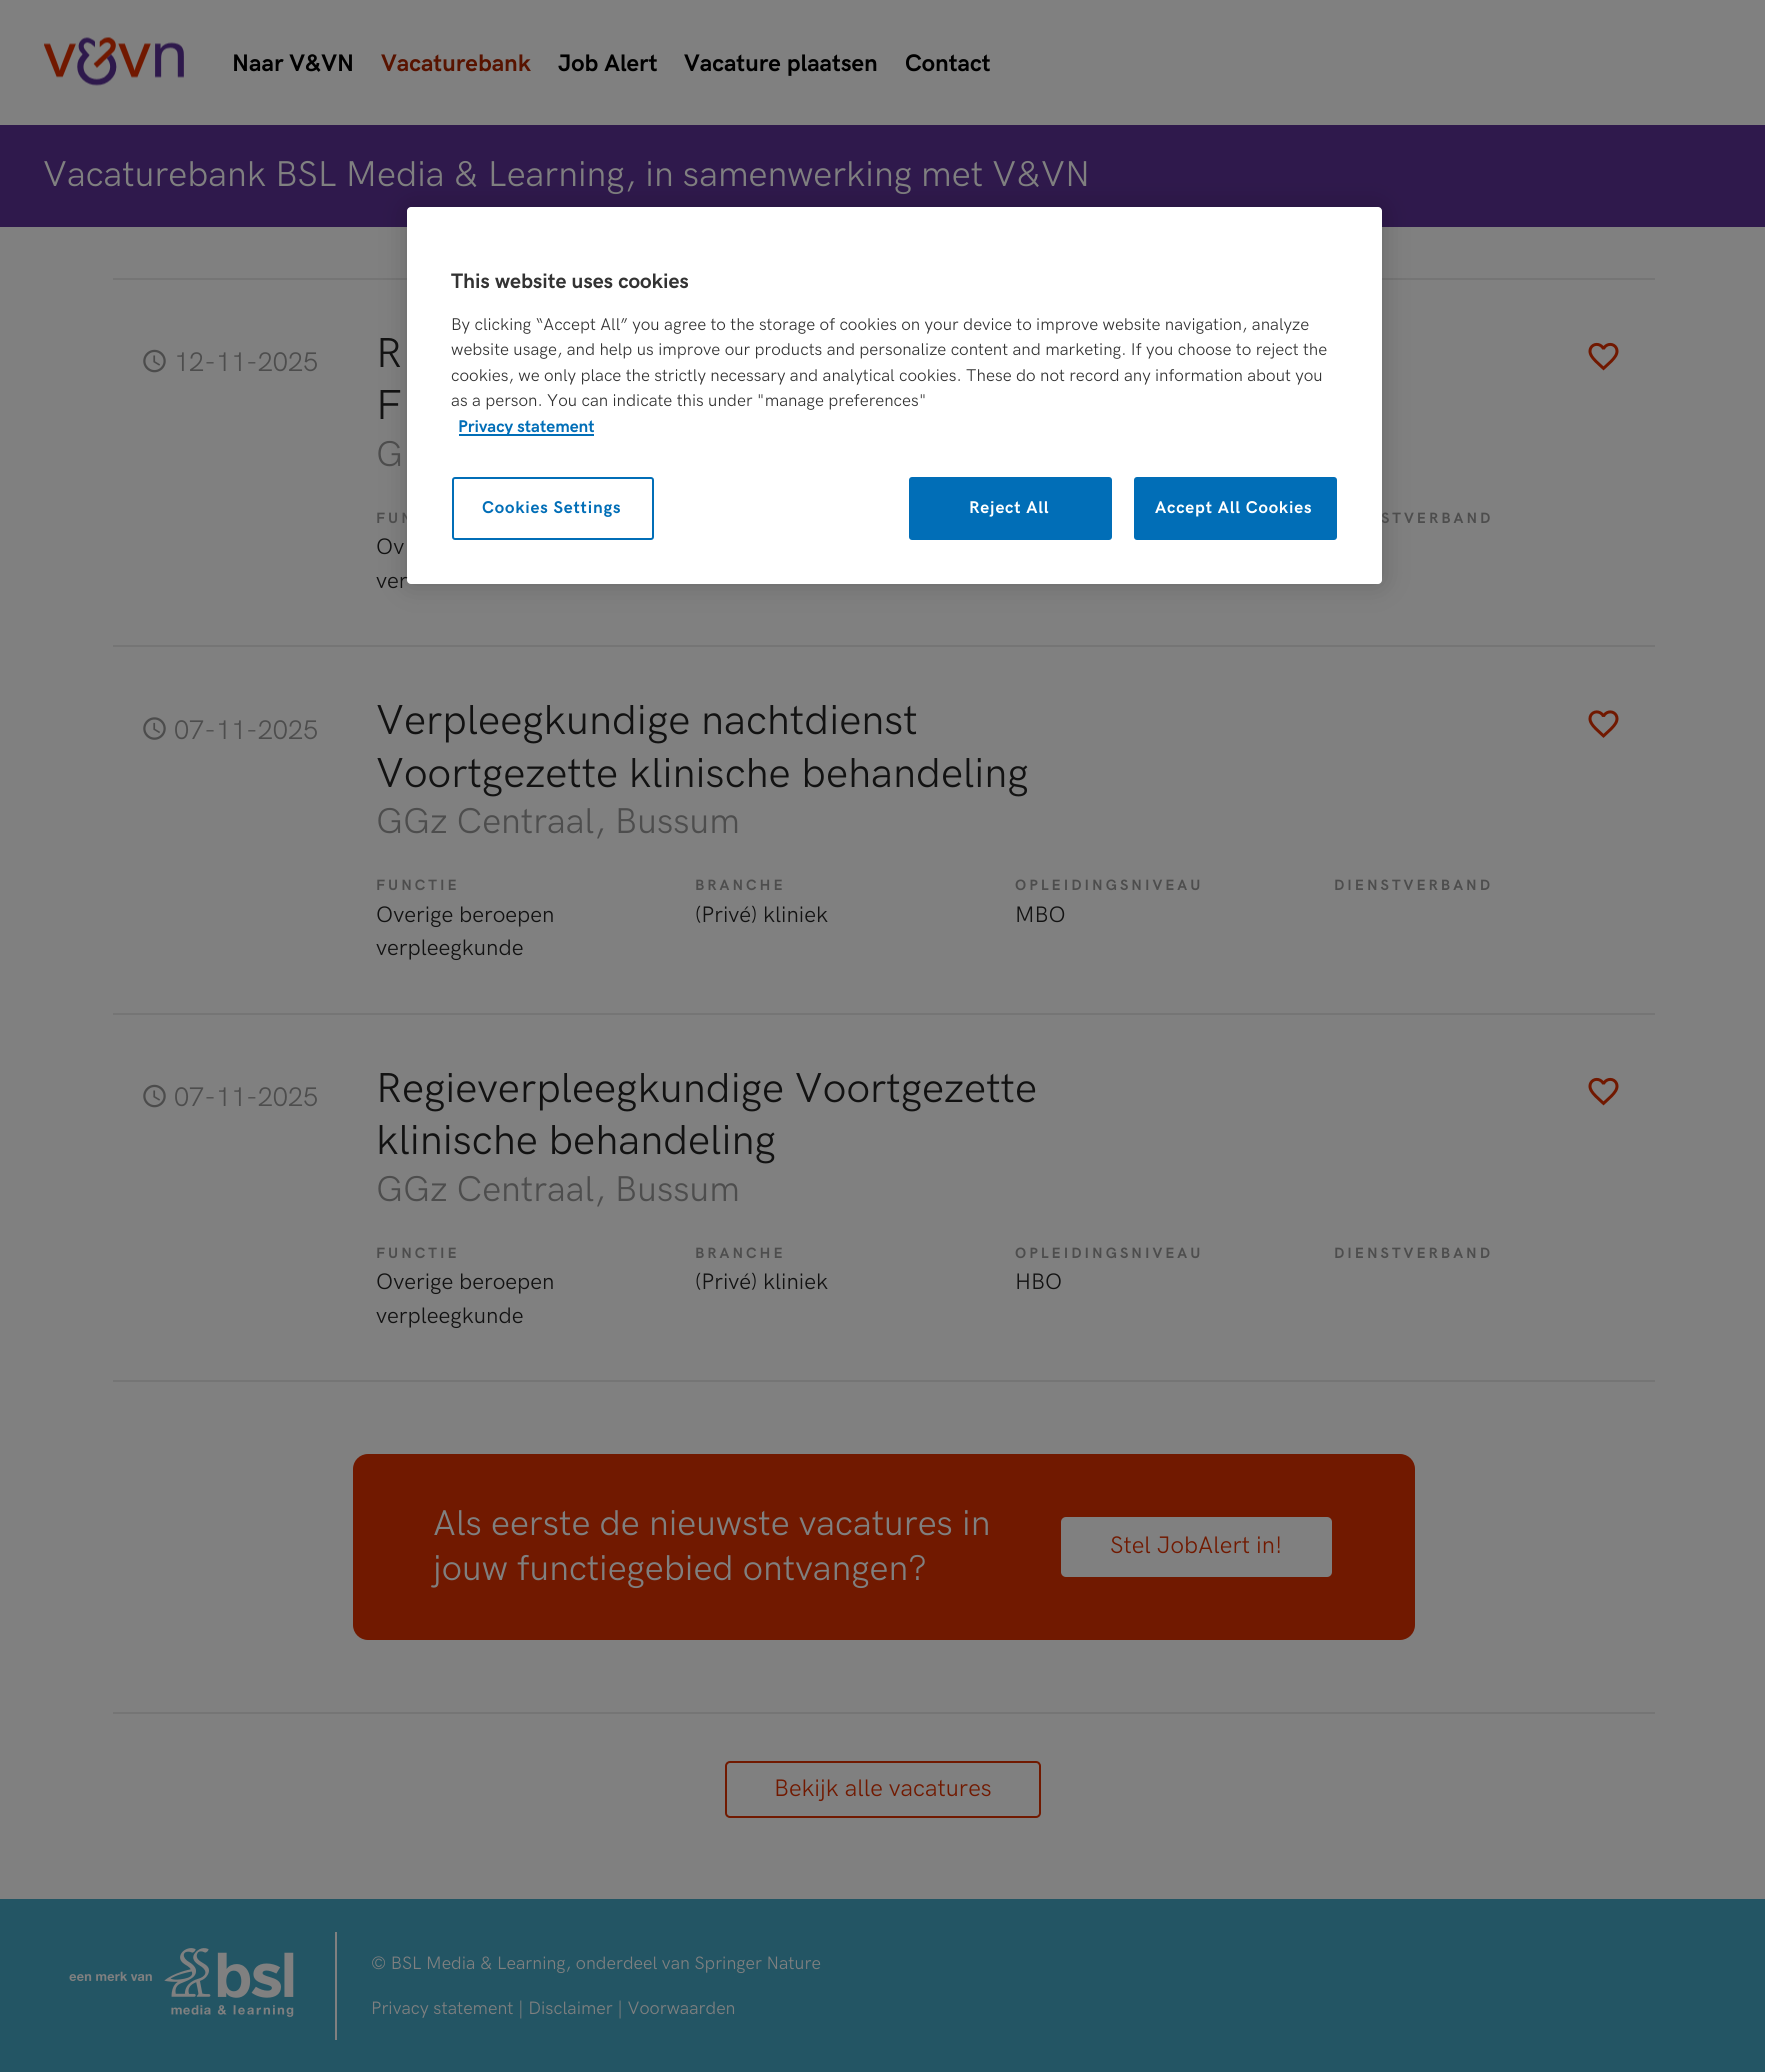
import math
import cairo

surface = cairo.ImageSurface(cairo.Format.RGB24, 1765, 2072)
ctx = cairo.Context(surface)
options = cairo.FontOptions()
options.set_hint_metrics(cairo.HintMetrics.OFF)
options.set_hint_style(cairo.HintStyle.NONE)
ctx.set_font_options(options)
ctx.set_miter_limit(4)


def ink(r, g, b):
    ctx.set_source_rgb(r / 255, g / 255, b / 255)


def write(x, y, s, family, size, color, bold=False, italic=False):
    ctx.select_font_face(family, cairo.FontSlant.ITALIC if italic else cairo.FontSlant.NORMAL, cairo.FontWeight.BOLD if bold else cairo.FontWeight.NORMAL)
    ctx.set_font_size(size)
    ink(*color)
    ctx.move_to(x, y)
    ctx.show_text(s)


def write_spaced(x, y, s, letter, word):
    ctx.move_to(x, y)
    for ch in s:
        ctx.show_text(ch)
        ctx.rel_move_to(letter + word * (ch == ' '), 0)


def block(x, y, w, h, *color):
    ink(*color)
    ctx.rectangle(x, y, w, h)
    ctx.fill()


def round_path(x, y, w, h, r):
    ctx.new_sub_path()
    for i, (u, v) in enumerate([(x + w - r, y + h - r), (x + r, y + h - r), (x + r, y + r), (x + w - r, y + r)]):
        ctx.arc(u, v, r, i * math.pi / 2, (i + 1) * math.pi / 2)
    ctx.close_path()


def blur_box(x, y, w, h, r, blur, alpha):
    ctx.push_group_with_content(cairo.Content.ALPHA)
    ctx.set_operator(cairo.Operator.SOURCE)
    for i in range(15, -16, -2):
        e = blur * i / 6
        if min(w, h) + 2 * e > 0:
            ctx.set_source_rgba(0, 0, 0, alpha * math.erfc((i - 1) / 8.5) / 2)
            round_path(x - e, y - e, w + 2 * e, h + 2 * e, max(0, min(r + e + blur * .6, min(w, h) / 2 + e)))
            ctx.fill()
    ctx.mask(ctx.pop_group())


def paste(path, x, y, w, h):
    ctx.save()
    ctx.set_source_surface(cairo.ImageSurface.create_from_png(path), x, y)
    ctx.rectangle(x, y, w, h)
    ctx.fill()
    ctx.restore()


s1 = dict(family="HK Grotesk", size=24, color=(0, 0, 0), bold=True)
s2 = dict(family="HK Grotesk", size=24, color=(88, 19, 0), bold=True)
s3 = dict(family="HK Grotesk", size=36, color=(128, 128, 128))
s4 = dict(family="HK Grotesk", size=21, color=(51, 51, 51), bold=True)
s5 = dict(family="HK Grotesk", size=17.07, color=(51, 51, 51))
s6 = dict(family="HK Grotesk", size=17.07, color=(1, 110, 183), bold=True)
s7 = dict(family="HK Grotesk", size=27, color=(77, 77, 77))
s8 = dict(family="HK Grotesk", size=42, color=(18, 18, 18))
s9 = dict(family="HK Grotesk", size=36, color=(77, 77, 77))
s10 = dict(family="HK Grotesk", size=22.5, color=(18, 18, 18))
s11 = dict(family="HK Grotesk", size=24, color=(113, 25, 0))
s12 = dict(family="HK Grotesk", size=18, color=(128, 128, 128))

ink(128, 128, 128)
ctx.paint()
paste("pic1.png", 44, 37, 140, 49)
write(232, 71, "Naar V&VN", **s1)
write(381, 71, "Vacaturebank", **s2)
write(558, 71, "Job Alert", **s1)
write(684, 71, "Vacature plaatsen", **s1)
write(905, 71, "Contact", **s1)
block(0, 125, 1765, 102, 47, 25, 76)
write(43, 186, "Vacaturebank BSL Media & Learning, in samenwerking met V&VN", **s3)
block(113, 278, 1542, 2, 117, 117, 117)
ink(0, 0, 0)
blur_box(407, 207, 975, 377, 4, 13.5, 0.2)
ctx.select_font_face("HK Grotesk", cairo.FontSlant.NORMAL, cairo.FontWeight.BOLD)
ctx.set_font_size(15)
ink(77, 77, 77)
write_spaced(376, 523, "FUN", 3, 0)
write_spaced(1381, 523, "STVERBAND", 3, 0)
ink(255, 255, 255)
round_path(407, 207, 975, 377, 4)
ctx.fill()
write(451, 288, "This website uses cookies", **s4)
write(451, 330, "By clicking “Accept All” you agree to the storage of cookies on your device to improve website navigation, analyze", **s5)
write(451, 355, "website usage, and help us improve our products and personalize content and marketing. If you choose to reject the", **s5)
write(451, 381, "cookies, we only place the strictly necessary and analytical cookies. These do not record any information about you", **s5)
write(451, 406, "as a person. You can indicate this under \"manage preferences\"", **s5)
block(459, 434, 135, 2, 1, 110, 183)
write(458, 432, "Privacy statement", **s6)
round_path(453, 478, 200, 61, 2)
ctx.stroke()
write_spaced(482, 513, "Cookies Settings", 0.8, 0)
round_path(910, 478, 201, 61, 2)
ctx.fill_preserve()
ctx.stroke()
ink(255, 255, 255)
write_spaced(969, 513, "Reject All", 0.8, 0)
ink(1, 110, 183)
round_path(1135, 478, 201, 61, 2)
ctx.fill_preserve()
ctx.stroke()
ink(255, 255, 255)
write_spaced(1155, 513, "Accept All Cookies", 0.8, 0)
block(113, 645, 1542, 2, 117, 117, 117)
paste("pic2.png", 143, 349, 23, 24)
write(174, 371, "12-11-2025", **s7)
write(376, 367, "R", **s8)
write(376, 419, "F", **s8)
write(376, 466, "G", **s9)
write(376, 554, "Ov", **s10)
write(376, 588, "ver", **s10)
paste("pic3.png", 1588, 342, 31, 29)
block(113, 1013, 1542, 2, 117, 117, 117)
paste("pic4.png", 143, 717, 23, 23)
write(174, 739, "07-11-2025", **s7)
write(376, 734, "Verpleegkundige nachtdienst", **s8)
write(376, 787, "Voortgezette klinische behandeling", **s8)
write(376, 833, "GGz Centraal, Bussum", **s9)
ctx.select_font_face("HK Grotesk", cairo.FontSlant.NORMAL, cairo.FontWeight.BOLD)
ctx.set_font_size(15)
write_spaced(376, 890, "FUNCTIE", 3, 0)
write_spaced(695, 890, "BRANCHE", 3, 0)
write_spaced(1015, 890, "OPLEIDINGSNIVEAU", 3, 0)
write_spaced(1334, 890, "DIENSTVERBAND", 3, 0)
write(376, 922, "Overige beroepen", **s10)
write(376, 955, "verpleegkunde", **s10)
write(695, 922, "(Privé) kliniek", **s10)
write(1015, 922, "MBO", **s10)
paste("pic5.png", 1588, 710, 31, 28)
block(113, 1380, 1542, 2, 117, 117, 117)
paste("pic2.png", 143, 1084, 23, 24)
write(174, 1106, "07-11-2025", **s7)
write(376, 1102, "Regieverpleegkundige Voortgezette", **s8)
write(376, 1154, "klinische behandeling", **s8)
write(376, 1201, "GGz Centraal, Bussum", **s9)
ctx.select_font_face("HK Grotesk", cairo.FontSlant.NORMAL, cairo.FontWeight.BOLD)
ctx.set_font_size(15)
write_spaced(376, 1258, "FUNCTIE", 3, 0)
write_spaced(695, 1258, "BRANCHE", 3, 0)
write_spaced(1015, 1258, "OPLEIDINGSNIVEAU", 3, 0)
write_spaced(1334, 1258, "DIENSTVERBAND", 3, 0)
write(376, 1289, "Overige beroepen", **s10)
write(376, 1323, "verpleegkunde", **s10)
write(695, 1289, "(Privé) kliniek", **s10)
write(1015, 1289, "HBO", **s10)
paste("pic3.png", 1588, 1077, 31, 29)
block(113, 1712, 1542, 2, 117, 117, 117)
ink(113, 25, 0)
round_path(353, 1454, 1062, 186, 15)
ctx.fill()
write(433, 1535, "Als eerste de nieuwste vacatures in", **s3)
write(433, 1580, "jouw functiegebied ontvangen?", **s3)
round_path(1061, 1517, 271, 60, 5)
ctx.fill()
write(1110, 1553, "Stel JobAlert in!", **s11)
round_path(726, 1762, 314, 55, 4)
ctx.stroke()
write(774, 1796, "Bekijk alle vacatures", **s11)
block(0, 1899, 1765, 173, 35, 85, 100)
paste("pic6.png", 69, 1948, 225, 69)
block(335, 1932, 2, 108, 128, 128, 128)
write(371, 1969, "© BSL Media & Learning, onderdeel van Springer Nature", **s12)
write(371, 2014, "Privacy statement | Disclaimer | Voorwaarden", **s12)
surface.write_to_png("screenshot.png")
